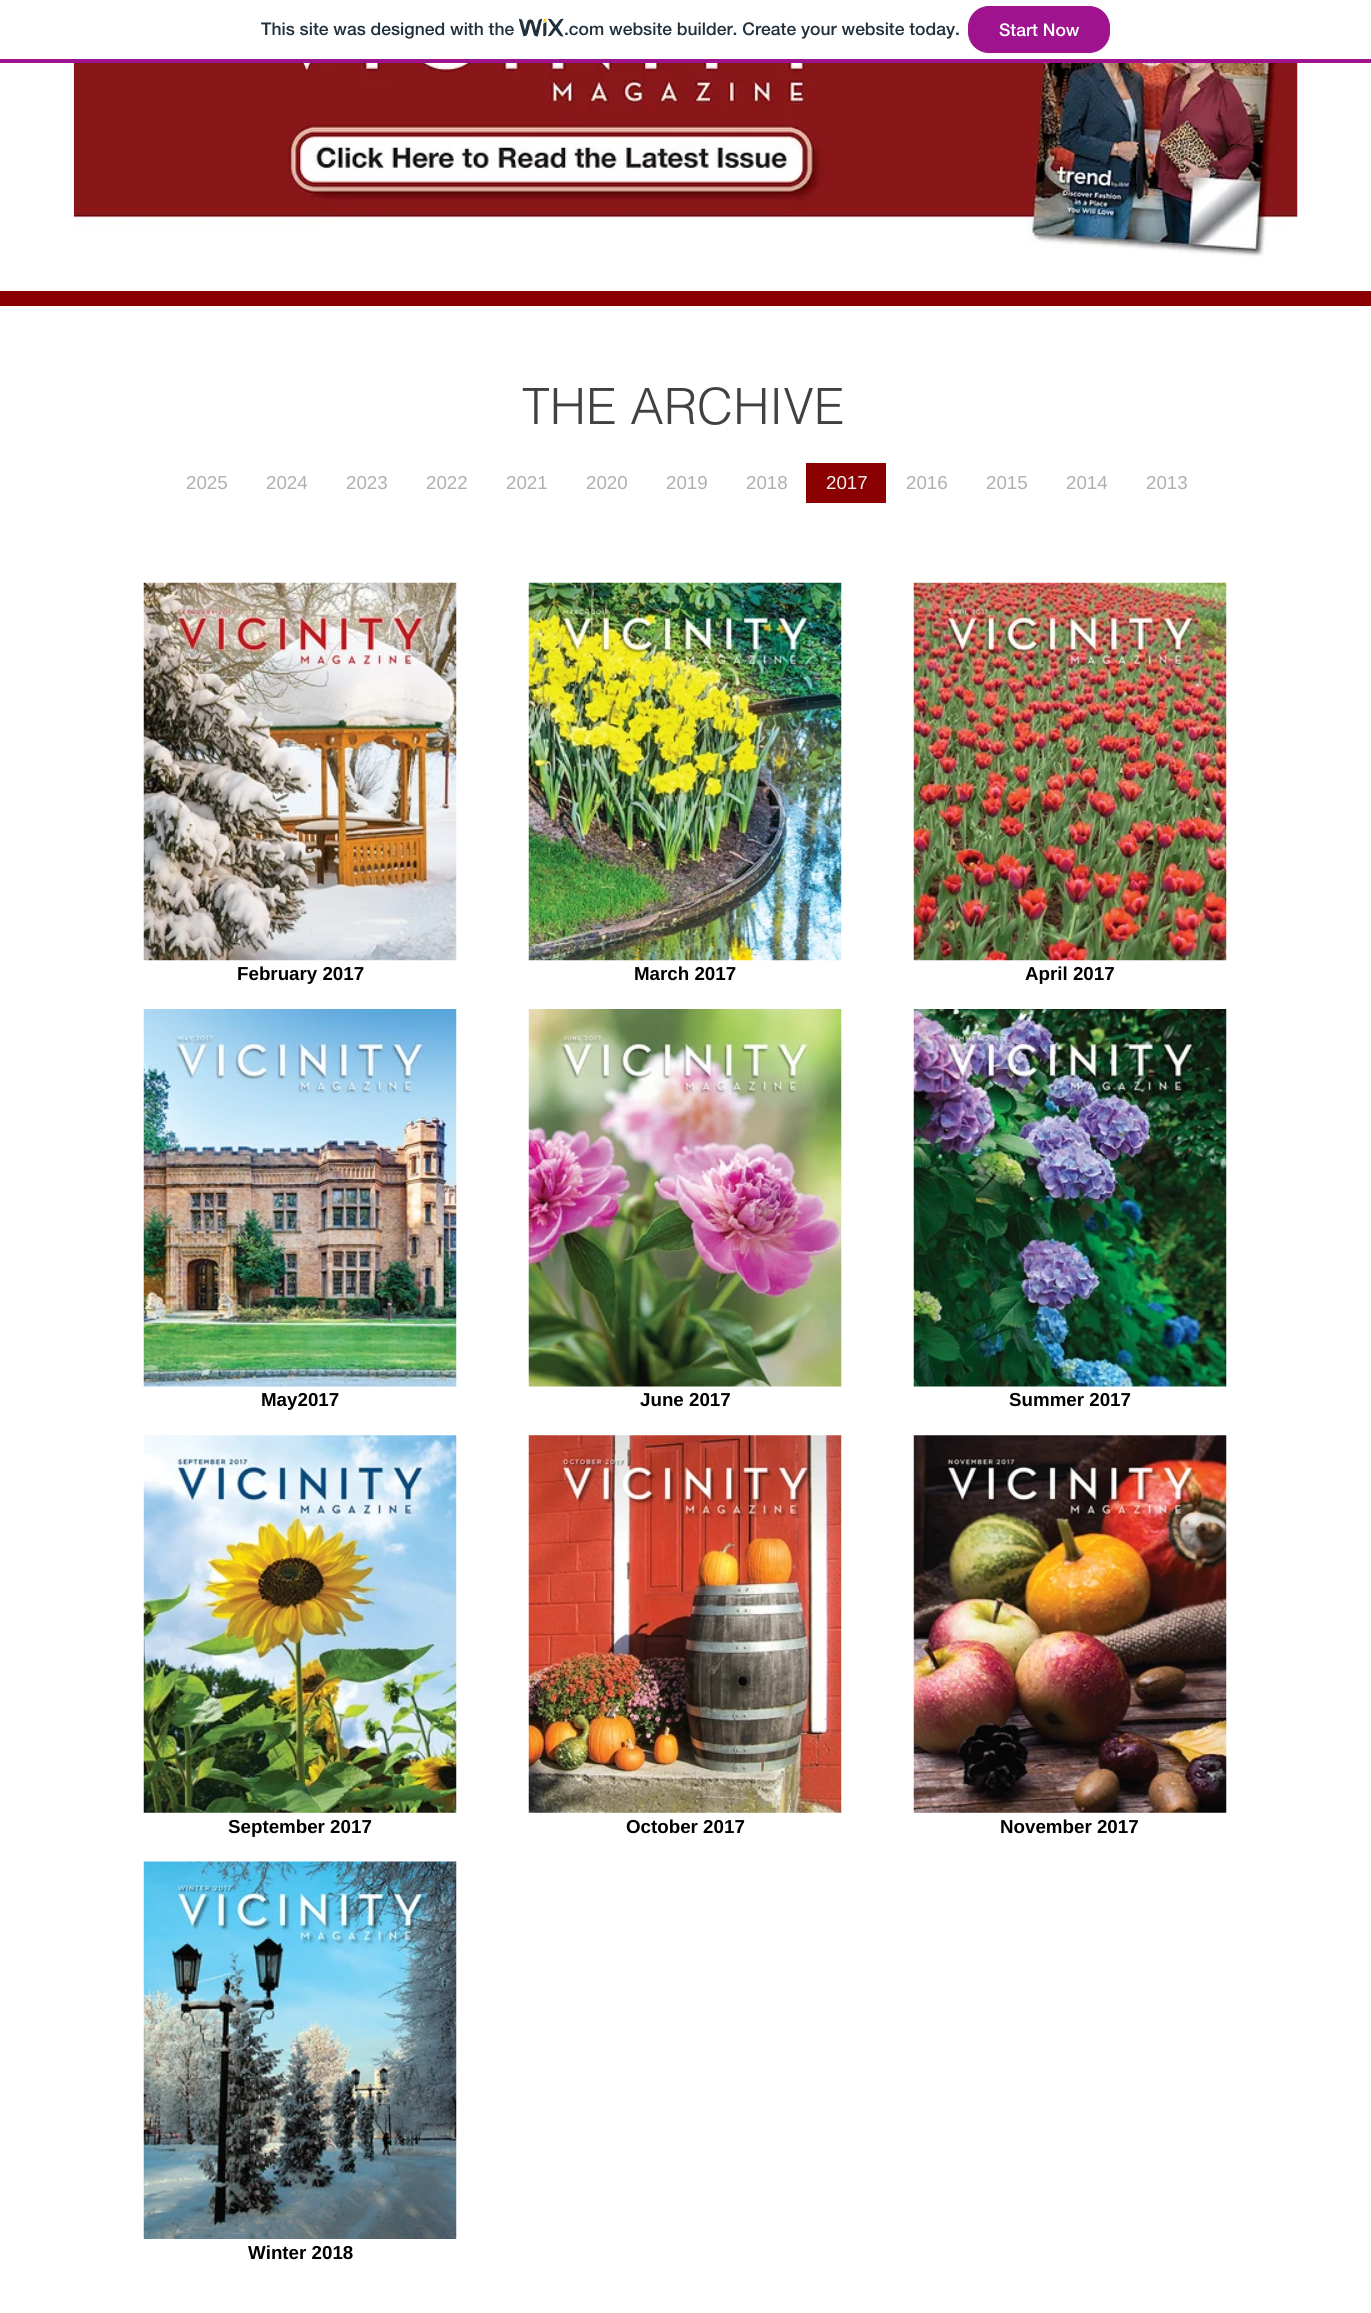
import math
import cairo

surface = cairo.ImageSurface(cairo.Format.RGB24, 1371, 2313)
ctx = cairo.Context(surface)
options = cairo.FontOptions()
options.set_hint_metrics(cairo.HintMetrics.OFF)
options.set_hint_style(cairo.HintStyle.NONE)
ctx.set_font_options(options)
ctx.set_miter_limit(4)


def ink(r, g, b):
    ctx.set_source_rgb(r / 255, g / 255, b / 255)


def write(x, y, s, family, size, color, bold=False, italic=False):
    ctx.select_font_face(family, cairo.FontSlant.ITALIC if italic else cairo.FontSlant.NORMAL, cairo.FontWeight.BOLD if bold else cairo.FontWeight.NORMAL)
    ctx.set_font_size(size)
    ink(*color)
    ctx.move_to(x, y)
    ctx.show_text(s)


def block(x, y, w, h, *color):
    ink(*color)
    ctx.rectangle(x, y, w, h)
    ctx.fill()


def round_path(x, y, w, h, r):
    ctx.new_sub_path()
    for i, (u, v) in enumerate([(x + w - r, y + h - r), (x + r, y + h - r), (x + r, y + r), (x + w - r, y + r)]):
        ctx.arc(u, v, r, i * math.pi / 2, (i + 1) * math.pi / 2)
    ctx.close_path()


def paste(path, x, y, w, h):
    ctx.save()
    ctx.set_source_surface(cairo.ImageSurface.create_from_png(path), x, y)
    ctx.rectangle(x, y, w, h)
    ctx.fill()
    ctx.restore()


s1 = dict(family="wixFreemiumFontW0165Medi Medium", size=17.5, color=(32, 48, 60))
s2 = dict(family="wixFreemiumFontW0165Medi Medium", size=17.5, color=(255, 255, 255))
s3 = dict(family="helvetica Light", size=50, color=(65, 65, 65))
s4 = dict(family="Liberation Sans", size=18.75, color=(175, 175, 175))
s5 = dict(family="Liberation Sans", size=18.75, color=(244, 243, 242))
s6 = dict(family="Liberation Sans", size=18.75, color=(0, 0, 0), bold=True)

ink(255, 255, 255)
ctx.paint()
block(0, 59, 1371, 4, 160, 19, 142)
write(261, 35, "This site was designed with the", **s1)
paste("pic1.png", 519, 18, 45, 19)
write(564, 35, ".com website builder. Create your website today.", **s1)
ink(160, 19, 142)
round_path(968.5, 6.5, 141, 46, 20.5)
ctx.fill_preserve()
ctx.set_line_width(1)
ctx.stroke()
write(999, 36, "Start Now", **s2)
paste("pic2.png", 73, 63, 1225, 194)
block(0, 291, 1371, 15, 139, 0, 0)
write(522, 424, "THE ARCHIVE", **s3)
write(186, 489, "2025", **s4)
write(266, 489, "2024", **s4)
write(346, 489, "2023", **s4)
write(426, 489, "2022", **s4)
write(506, 489, "2021", **s4)
write(586, 489, "2020", **s4)
write(666, 489, "2019", **s4)
write(746, 489, "2018", **s4)
block(806, 463, 80, 40, 139, 0, 0)
write(826, 489, "2017", **s5)
write(906, 489, "2016", **s4)
write(986, 489, "2015", **s4)
write(1066, 489, "2014", **s4)
write(1146, 489, "2013", **s4)
paste("pic3.png", 143, 582, 314, 379)
write(237, 980, "February 2017", **s6)
paste("pic4.png", 528, 582, 314, 379)
write(634, 980, "March 2017", **s6)
paste("pic5.png", 913, 582, 314, 379)
write(1025, 980, "April 2017", **s6)
paste("pic6.png", 143, 1009, 314, 378)
write(261, 1406, "May2017", **s6)
paste("pic7.png", 528, 1009, 314, 378)
write(640, 1406, "June 2017", **s6)
paste("pic8.png", 913, 1009, 314, 378)
write(1009, 1406, "Summer 2017", **s6)
paste("pic9.png", 143, 1435, 314, 378)
write(228, 1833, "September 2017", **s6)
paste("pic10.png", 528, 1435, 314, 378)
write(626, 1833, "October 2017", **s6)
paste("pic11.png", 913, 1435, 314, 378)
write(1000, 1833, "November 2017", **s6)
paste("pic12.png", 143, 1861, 314, 378)
write(248, 2259, "Winter 2018", **s6)
surface.write_to_png("screenshot.png")
